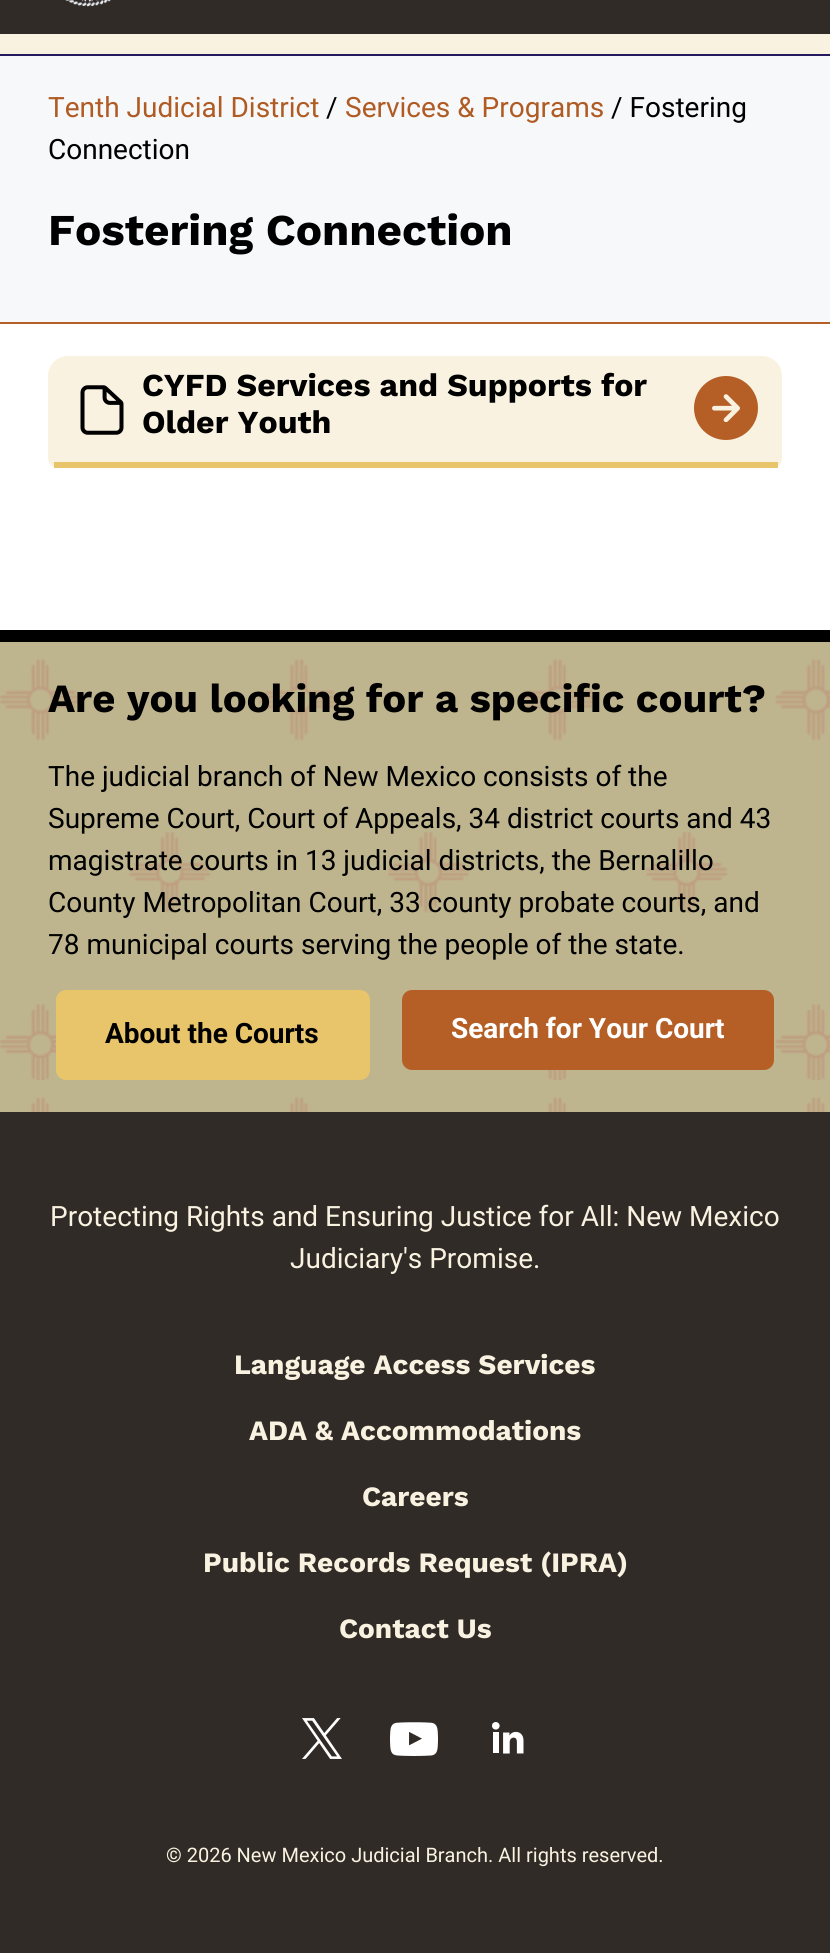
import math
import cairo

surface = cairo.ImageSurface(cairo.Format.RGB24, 830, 1953)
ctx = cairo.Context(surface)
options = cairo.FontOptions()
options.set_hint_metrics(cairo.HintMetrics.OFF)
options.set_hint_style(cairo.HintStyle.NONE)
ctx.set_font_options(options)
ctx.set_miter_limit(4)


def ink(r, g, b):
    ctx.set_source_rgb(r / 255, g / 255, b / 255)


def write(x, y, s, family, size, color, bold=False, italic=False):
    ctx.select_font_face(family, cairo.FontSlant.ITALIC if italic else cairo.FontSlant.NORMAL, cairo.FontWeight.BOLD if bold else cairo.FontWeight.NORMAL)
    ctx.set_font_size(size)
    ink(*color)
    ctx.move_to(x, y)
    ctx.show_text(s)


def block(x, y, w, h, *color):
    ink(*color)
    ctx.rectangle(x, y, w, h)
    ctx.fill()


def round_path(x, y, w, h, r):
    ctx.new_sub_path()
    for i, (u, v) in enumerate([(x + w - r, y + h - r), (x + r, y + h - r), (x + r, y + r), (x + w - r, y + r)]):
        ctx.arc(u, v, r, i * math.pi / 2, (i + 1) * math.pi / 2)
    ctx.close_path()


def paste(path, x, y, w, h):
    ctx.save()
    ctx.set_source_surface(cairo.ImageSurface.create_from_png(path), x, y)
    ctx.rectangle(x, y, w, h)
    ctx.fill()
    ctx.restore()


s1 = dict(family="Roboto", size=28, color=(175, 91, 35))
s2 = dict(family="Roboto", size=28, color=(0, 0, 0))
s3 = dict(family="Work Sans", size=44, color=(0, 0, 0), bold=True)
s4 = dict(family="Work Sans", size=32, color=(0, 0, 0), bold=True)
s5 = dict(family="Work Sans", size=40, color=(0, 0, 0), bold=True)
s6 = dict(family="Roboto", size=28, color=(0, 0, 0), bold=True)
s7 = dict(family="Roboto", size=28, color=(255, 255, 255), bold=True)
s8 = dict(family="Roboto", size=28, color=(249, 242, 224))
s9 = dict(family="Work Sans", size=28, color=(249, 242, 224), bold=True)
s10 = dict(family="Roboto", size=20, color=(249, 242, 224))

ink(255, 255, 255)
ctx.paint()
block(0, 0, 830, 34, 48, 43, 39)
paste("pic1.png", 65, 0, 46, 7)
block(0, 34, 830, 20, 249, 242, 224)
block(0, 54, 830, 2, 39, 25, 96)
block(0, 56, 830, 266, 247, 248, 250)
block(0, 322, 830, 2, 181, 95, 38)
write(48, 117, "Tenth Judicial District", **s1)
write(326, 117, "/", **s2)
write(345, 117, "Services & Programs", **s1)
write(611, 117, "/ Fostering", **s2)
write(48, 159, "Connection", **s2)
write(48, 245, "Fostering Connection", **s3)
ink(249, 242, 224)
ctx.new_path()
ctx.move_to(68, 356)
ctx.line_to(762, 356)
ctx.curve_to(773, 356, 782, 365, 782, 376)
ctx.line_to(782, 458)
ctx.curve_to(782, 463.5, 777.5, 468, 772, 468)
ctx.line_to(58, 468)
ctx.curve_to(52.5, 468, 48, 463.5, 48, 458)
ctx.line_to(48, 376)
ctx.curve_to(48, 365, 57, 356, 68, 356)
ctx.close_path()
ctx.fill()
block(54, 462, 724, 6, 232, 196, 106)
paste("pic2.png", 80, 385, 44, 50)
write(142, 396, "CYFD Services and Supports for", **s4)
write(142, 433, "Older Youth", **s4)
ink(181, 95, 38)
ctx.new_path()
ctx.arc(726, 408, 32, 0, 2 * math.pi)
ctx.fill()
paste("pic3.png", 712, 394, 28, 28)
block(0, 642, 830, 470, 190, 181, 142)
paste("pic4.png", 0, 659, 830, 453)
block(0, 630, 830, 12, 0, 0, 0)
write(48, 712, "Are you looking for a specific court?", **s5)
write(48, 786, "The judicial branch of New Mexico consists of the", **s2)
write(48, 828, "Supreme Court, Court of Appeals, 34 district courts and 43", **s2)
write(48, 870, "magistrate courts in 13 judicial districts, the Bernalillo", **s2)
write(48, 912, "County Metropolitan Court, 33 county probate courts, and", **s2)
write(48, 954, "78 municipal courts serving the people of the state.", **s2)
ink(232, 196, 106)
round_path(56, 990, 314, 90, 10)
ctx.fill()
write(105, 1043, "About the Courts", **s6)
ink(181, 95, 38)
round_path(402, 990, 372, 80, 10)
ctx.fill()
write(451, 1038, "Search for Your Court", **s7)
block(0, 1112, 830, 841, 48, 43, 39)
write(50, 1226, "Protecting Rights and Ensuring Justice for All: New Mexico", **s8)
write(290, 1268, "Judiciary's Promise.", **s8)
write(234, 1374, "Language Access Services", **s9)
write(249, 1440, "ADA & Accommodations", **s9)
write(362, 1506, "Careers", **s9)
write(203, 1572, "Public Records Request (IPRA)", **s9)
write(339, 1638, "Contact Us", **s9)
paste("pic5.png", 302, 1718, 40, 41)
paste("pic6.png", 390, 1722, 48, 34)
paste("pic7.png", 492, 1722, 32, 32)
write(166, 1862, "© 2026 New Mexico Judicial Branch. All rights reserved.", **s10)
surface.write_to_png("screenshot.png")
